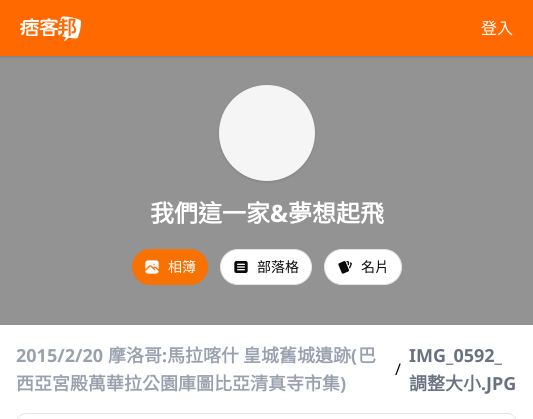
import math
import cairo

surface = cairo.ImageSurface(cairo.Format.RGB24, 533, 419)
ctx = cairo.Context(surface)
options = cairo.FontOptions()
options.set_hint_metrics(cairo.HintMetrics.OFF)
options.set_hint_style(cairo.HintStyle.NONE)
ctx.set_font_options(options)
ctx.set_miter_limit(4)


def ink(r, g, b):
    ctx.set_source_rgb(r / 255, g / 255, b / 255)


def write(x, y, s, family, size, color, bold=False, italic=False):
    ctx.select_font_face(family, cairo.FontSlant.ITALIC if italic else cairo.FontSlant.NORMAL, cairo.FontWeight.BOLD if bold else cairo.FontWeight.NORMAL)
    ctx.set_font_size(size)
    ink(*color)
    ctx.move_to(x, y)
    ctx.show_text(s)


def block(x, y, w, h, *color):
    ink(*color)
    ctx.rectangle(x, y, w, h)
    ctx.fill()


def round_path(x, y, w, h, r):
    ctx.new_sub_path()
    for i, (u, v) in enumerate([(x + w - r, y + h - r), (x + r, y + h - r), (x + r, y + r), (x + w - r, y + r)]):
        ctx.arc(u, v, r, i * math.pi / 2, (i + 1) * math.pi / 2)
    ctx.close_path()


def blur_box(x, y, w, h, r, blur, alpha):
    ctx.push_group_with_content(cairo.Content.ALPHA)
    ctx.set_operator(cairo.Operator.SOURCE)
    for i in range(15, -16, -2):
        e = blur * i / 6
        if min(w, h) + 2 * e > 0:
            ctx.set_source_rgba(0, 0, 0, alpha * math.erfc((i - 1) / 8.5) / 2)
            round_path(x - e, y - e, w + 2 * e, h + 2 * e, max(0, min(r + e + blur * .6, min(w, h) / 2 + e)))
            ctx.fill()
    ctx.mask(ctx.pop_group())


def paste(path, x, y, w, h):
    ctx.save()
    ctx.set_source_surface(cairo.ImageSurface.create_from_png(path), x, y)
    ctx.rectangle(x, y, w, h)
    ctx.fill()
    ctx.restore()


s1 = dict(family="Noto Sans CJK TC", size=16, color=(255, 255, 255))
s2 = dict(family="Noto Sans CJK TC", size=24, color=(255, 255, 255), bold=True)
s3 = dict(family="Noto Sans", size=24, color=(255, 255, 255), bold=True)
s4 = dict(family="Noto Sans CJK TC", size=14, color=(255, 255, 255))
s5 = dict(family="Noto Sans CJK TC", size=14, color=(10, 10, 10))
s6 = dict(family="Noto Sans", size=18, color=(153, 161, 175), bold=True)
s7 = dict(family="Noto Sans CJK TC", size=18, color=(153, 161, 175), bold=True)
s8 = dict(family="Noto Sans", size=16, color=(10, 10, 10))
s9 = dict(family="Noto Sans", size=18, color=(106, 114, 130), bold=True)
s10 = dict(family="Noto Sans CJK TC", size=18, color=(106, 114, 130), bold=True)

ink(255, 255, 255)
ctx.paint()
block(0, 56, 533, 269, 147, 147, 147)
ink(0, 0, 0)
blur_box(1, 2, 531, 54, 0, 1, 0.1)
blur_box(0, 1, 533, 56, 0, 1.5, 0.1)
block(0, 0, 533, 56, 255, 105, 0)
paste("pic1.png", 20, 16, 61, 25)
write(481, 34, "登入", **s1)
ink(0, 0, 0)
blur_box(220, 87, 94, 94, 47, 1, 0.1)
blur_box(219, 86, 96, 96, 48, 1.5, 0.1)
ink(245, 245, 245)
ctx.arc(267, 133, 48, 0, 2 * math.pi)
ctx.fill()
write(150, 222, "我們這一家", **s2)
write(270, 222, "&", **s3)
write(288, 222, "夢想起飛", **s2)
ink(248, 113, 3)
round_path(132, 249, 76, 36, 18)
ctx.fill()
paste("pic2.png", 145, 260, 14, 14)
write(168, 272, "相簿", **s4)
round_path(220.5, 249.5, 91, 35, 17.5)
ctx.fill_preserve()
ink(229, 229, 229)
ctx.set_line_width(1)
ctx.stroke()
paste("pic3.png", 234, 261, 14, 12)
write(257, 272, "部落格", **s5)
ink(255, 255, 255)
round_path(324.5, 249.5, 77, 35, 17.5)
ctx.fill_preserve()
ink(229, 229, 229)
ctx.stroke()
paste("pic4.png", 338, 261, 14, 13)
write(361, 272, "名片", **s5)
write(16, 362, "2015/2/20", **s6)
write(108, 362, "摩洛哥", **s7)
write(162, 362, ":", **s6)
write(167, 362, "馬拉喀什 皇城舊城遺跡", **s7)
write(351, 362, "(", **s6)
write(358, 362, "巴", **s7)
write(16, 390, "西亞宮殿萬華拉公園庫圖比亞清真寺市集", **s7)
write(340, 390, ")", **s6)
write(395, 375, "/", **s8)
write(409, 362, "IMG_0592_", **s9)
write(409, 390, "調整大小", **s10)
write(481, 390, ".JPG", **s9)
round_path(16.5, 413.5, 500, 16, 9.5)
ink(229, 229, 229)
ctx.stroke()
surface.write_to_png("screenshot.png")
